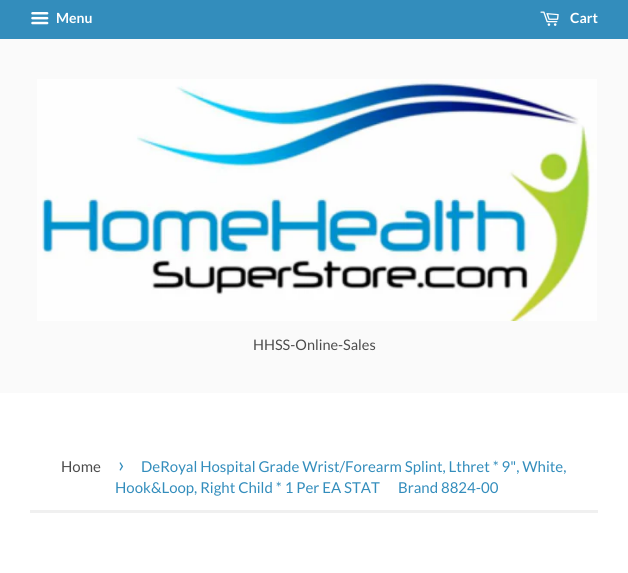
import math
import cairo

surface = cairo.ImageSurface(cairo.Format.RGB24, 628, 573)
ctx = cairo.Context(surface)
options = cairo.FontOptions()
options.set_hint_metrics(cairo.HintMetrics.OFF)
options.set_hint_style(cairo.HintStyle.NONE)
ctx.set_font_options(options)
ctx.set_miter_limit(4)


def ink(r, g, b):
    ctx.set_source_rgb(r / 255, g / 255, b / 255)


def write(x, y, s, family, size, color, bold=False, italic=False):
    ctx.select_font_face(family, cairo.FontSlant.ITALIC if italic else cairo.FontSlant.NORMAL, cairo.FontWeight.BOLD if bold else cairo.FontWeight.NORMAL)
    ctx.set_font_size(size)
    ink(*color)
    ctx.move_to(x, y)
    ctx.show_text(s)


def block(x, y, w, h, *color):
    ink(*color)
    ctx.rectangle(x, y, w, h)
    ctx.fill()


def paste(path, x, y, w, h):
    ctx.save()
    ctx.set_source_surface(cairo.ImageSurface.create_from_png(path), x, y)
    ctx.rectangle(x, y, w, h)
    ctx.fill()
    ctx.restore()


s1 = dict(family="Lato", size=14, color=(255, 255, 255), bold=True)
s2 = dict(family="Lato", size=14.5, color=(76, 76, 76))
s3 = dict(family="Lato", size=15, color=(76, 76, 76))
s4 = dict(family="Lato", size=21, color=(51, 141, 188))
s5 = dict(family="Lato", size=15, color=(51, 141, 188))

ink(255, 255, 255)
ctx.paint()
block(0, 0, 628, 39, 51, 141, 188)
paste("pic1.png", 31, 12, 18, 13)
write(56, 23, "Menu", **s1)
paste("pic2.png", 540, 11, 19, 15)
write(570, 23, "Cart", **s1)
block(0, 39, 628, 354, 250, 250, 250)
paste("pic3.png", 37, 79, 560, 242)
write(253, 350, "HHSS-Online-Sales", **s2)
block(30, 510, 568, 3, 240, 240, 240)
write(61, 472, "Home", **s3)
write(118, 472, "›", **s4)
write(141, 472, "DeRoyal Hospital Grade Wrist/Forearm Splint, Lthret * 9\", White,", **s5)
write(115, 493, "Hook&Loop, Right Child * 1 Per EA STAT", **s5)
write(398, 493, "Brand 8824-00", **s5)
surface.write_to_png("screenshot.png")
